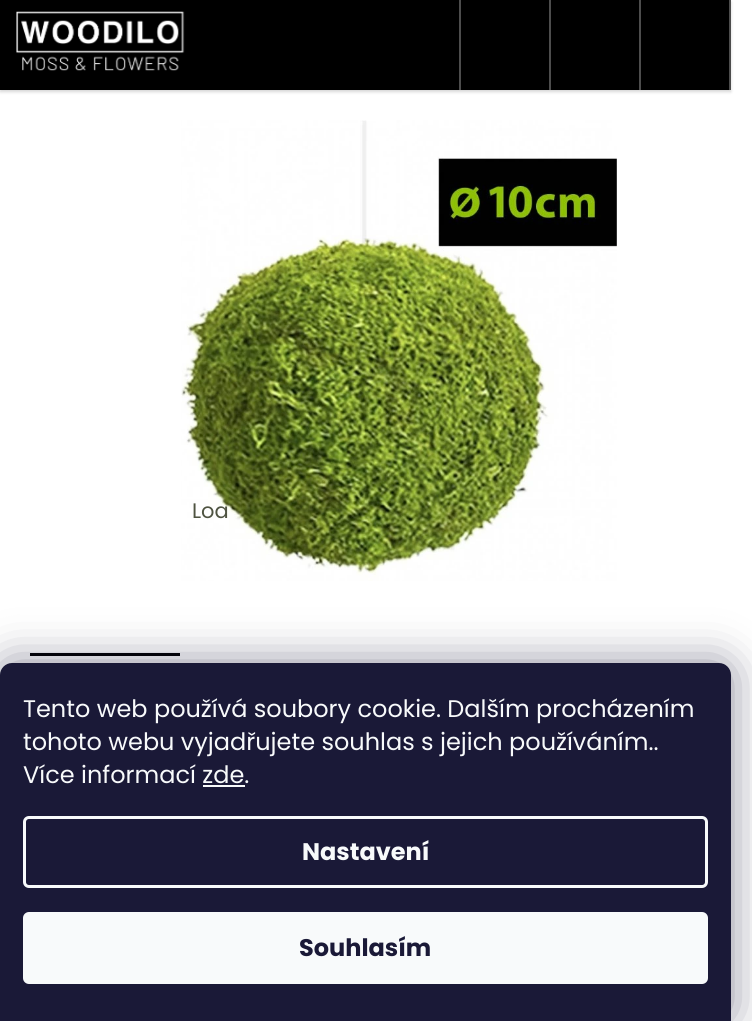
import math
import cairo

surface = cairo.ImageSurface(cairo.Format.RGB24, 752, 1021)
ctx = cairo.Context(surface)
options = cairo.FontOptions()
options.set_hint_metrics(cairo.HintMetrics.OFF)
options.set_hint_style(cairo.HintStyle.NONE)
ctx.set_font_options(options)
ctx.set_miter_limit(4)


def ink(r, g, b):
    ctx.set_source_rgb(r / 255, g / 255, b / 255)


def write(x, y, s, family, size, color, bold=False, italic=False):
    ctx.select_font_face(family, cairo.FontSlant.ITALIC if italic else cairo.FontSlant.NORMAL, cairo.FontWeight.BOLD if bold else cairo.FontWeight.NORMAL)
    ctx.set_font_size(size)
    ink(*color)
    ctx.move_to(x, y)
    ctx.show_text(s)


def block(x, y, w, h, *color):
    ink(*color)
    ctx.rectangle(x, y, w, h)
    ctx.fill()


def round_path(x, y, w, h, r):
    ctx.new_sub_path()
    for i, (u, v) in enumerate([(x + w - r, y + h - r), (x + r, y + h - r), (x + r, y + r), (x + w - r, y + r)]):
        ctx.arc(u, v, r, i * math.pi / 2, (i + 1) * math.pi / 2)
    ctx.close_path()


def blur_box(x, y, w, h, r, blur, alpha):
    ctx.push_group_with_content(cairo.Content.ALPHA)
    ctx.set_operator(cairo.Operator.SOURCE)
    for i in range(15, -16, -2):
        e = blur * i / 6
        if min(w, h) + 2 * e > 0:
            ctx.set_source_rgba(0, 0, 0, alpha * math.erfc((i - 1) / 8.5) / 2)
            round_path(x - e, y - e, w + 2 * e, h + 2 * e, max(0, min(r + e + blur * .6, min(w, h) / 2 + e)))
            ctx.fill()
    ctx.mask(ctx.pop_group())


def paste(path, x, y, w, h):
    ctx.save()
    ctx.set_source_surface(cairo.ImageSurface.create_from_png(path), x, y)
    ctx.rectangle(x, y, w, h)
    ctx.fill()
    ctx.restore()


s1 = dict(family="Poppins", size=21, color=(78, 83, 65))
s2 = dict(family="Poppins", size=24, color=(248, 250, 251))
s3 = dict(family="Poppins", size=24, color=(248, 250, 251), bold=True)
s4 = dict(family="Poppins", size=24, color=(26, 25, 55), bold=True)

ink(255, 255, 255)
ctx.paint()
ink(0, 0, 0)
blur_box(0, 2, 731, 90, 0, 1.5, 0.16)
block(0, 0, 729, 90, 0, 0, 0)
paste("pic1.png", 16, 11, 169, 60)
block(729, 0, 2, 90, 77, 77, 77)
block(459, 0, 2, 90, 77, 77, 77)
block(549, 0, 2, 90, 77, 77, 77)
block(639, 0, 2, 90, 77, 77, 77)
paste("pic2.png", 181, 120, 436, 461)
write(192, 518, "Loa", **s1)
block(30, 653, 150, 3, 0, 0, 0)
ink(27, 25, 57)
blur_box(0, 663, 731, 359, 12, 22.5, 0.5)
ink(26, 25, 55)
ctx.new_path()
ctx.move_to(12, 663)
ctx.line_to(719, 663)
ctx.curve_to(725.5, 663, 731, 668.5, 731, 675)
ctx.line_to(731, 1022)
ctx.line_to(0, 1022)
ctx.line_to(0, 675)
ctx.curve_to(0, 668.5, 5.5, 663, 12, 663)
ctx.close_path()
ctx.fill()
write(23, 717, "Tento web používá soubory cookie. Dalším procházením", **s2)
write(23, 750, "tohoto webu vyjadřujete souhlas s jejich používáním..", **s2)
write(23, 783, "Více informací zde.", **s2)
block(203, 785, 42, 2, 248, 250, 251)
round_path(24.5, 817.5, 682, 69, 4.5)
ctx.set_line_width(3)
ctx.stroke()
write(302, 860, "Nastavení", **s3)
round_path(23, 912, 685, 72, 6)
ctx.fill()
write(299, 956, "Souhlasím", **s4)
surface.write_to_png("screenshot.png")
